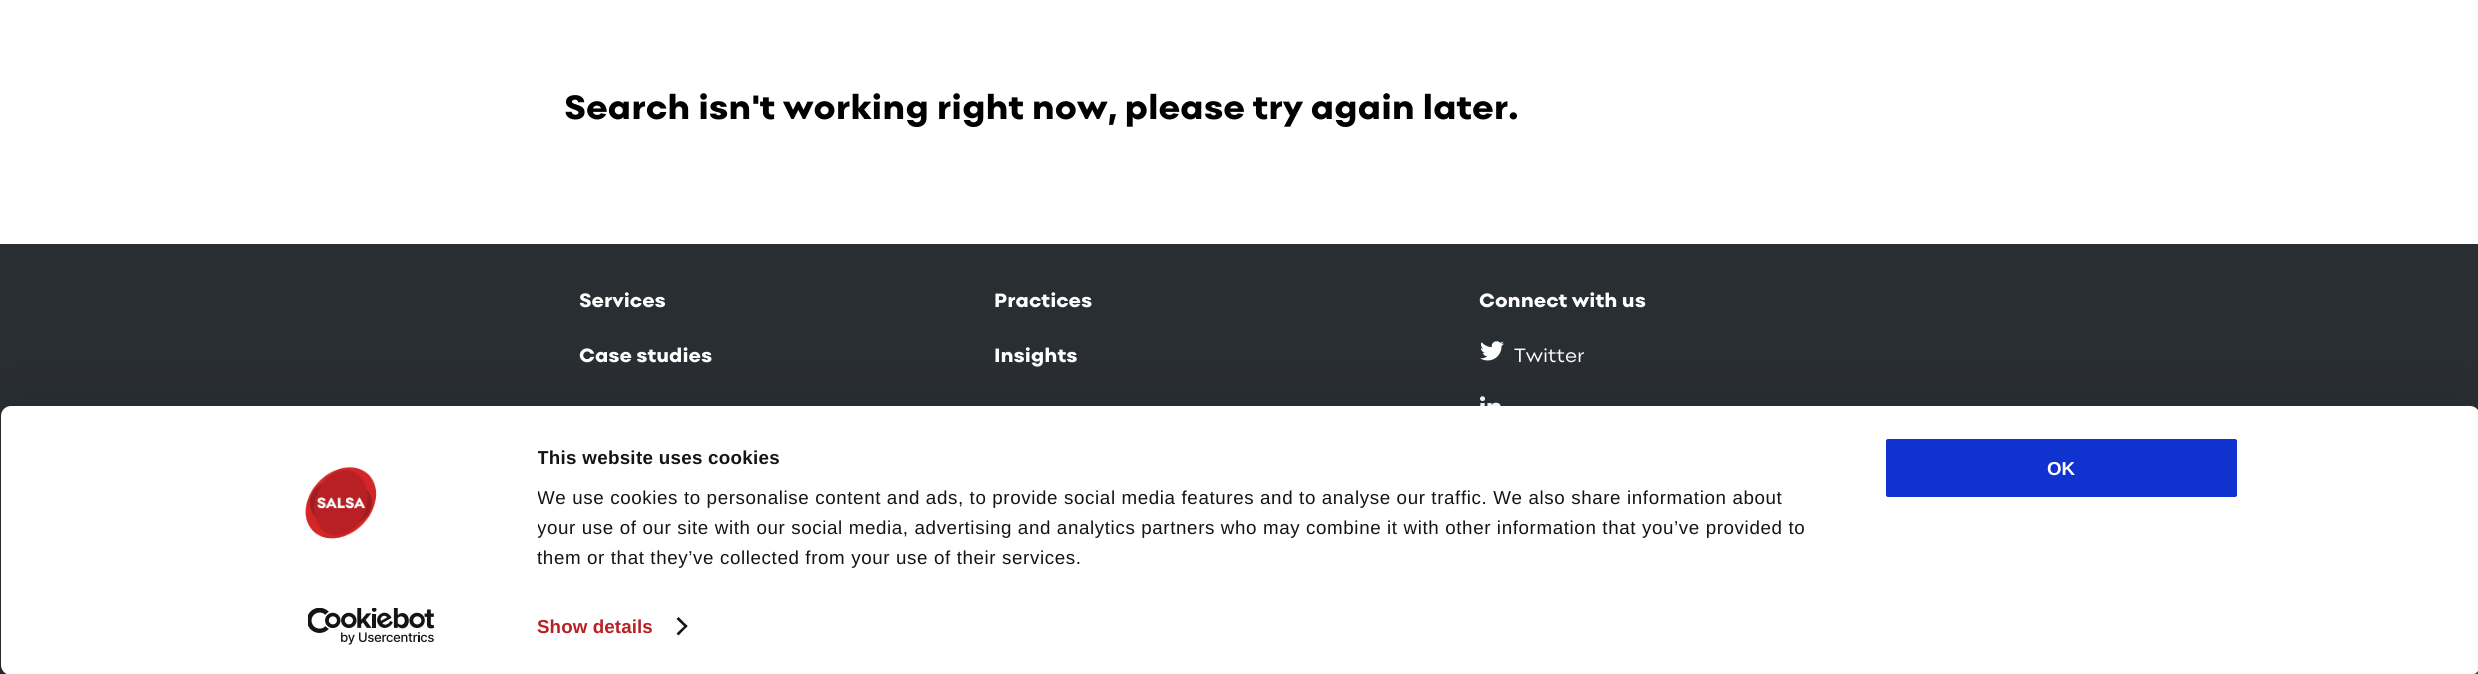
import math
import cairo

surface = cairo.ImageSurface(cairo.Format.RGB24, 2478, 674)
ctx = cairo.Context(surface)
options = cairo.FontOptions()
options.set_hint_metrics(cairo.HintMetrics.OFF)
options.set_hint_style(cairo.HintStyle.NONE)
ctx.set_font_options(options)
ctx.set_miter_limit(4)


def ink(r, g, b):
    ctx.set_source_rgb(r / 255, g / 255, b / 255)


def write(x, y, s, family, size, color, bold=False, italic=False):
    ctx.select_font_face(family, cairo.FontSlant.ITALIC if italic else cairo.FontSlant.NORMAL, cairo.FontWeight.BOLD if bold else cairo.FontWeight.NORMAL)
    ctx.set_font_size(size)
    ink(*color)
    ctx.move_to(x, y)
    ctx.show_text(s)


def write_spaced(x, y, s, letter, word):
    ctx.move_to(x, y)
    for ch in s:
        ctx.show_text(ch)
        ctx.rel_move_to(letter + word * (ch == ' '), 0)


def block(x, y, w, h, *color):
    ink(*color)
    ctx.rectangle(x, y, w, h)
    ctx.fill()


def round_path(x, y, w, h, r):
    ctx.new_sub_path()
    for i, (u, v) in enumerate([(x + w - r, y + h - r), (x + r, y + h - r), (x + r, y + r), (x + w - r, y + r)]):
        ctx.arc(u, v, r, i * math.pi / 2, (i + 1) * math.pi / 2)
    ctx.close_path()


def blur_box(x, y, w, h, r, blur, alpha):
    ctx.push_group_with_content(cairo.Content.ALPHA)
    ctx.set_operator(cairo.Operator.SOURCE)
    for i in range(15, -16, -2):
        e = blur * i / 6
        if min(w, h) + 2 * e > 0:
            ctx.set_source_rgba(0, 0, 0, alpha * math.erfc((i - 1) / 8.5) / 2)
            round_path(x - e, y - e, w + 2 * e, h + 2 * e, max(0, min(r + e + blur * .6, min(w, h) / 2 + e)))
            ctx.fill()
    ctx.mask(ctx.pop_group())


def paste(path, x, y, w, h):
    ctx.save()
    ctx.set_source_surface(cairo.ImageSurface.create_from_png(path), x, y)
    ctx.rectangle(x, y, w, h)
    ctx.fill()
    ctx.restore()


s1 = dict(family="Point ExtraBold", size=35, color=(0, 0, 0))
s2 = dict(family="Point ExtraBold", size=20, color=(255, 255, 255))
s3 = dict(family="Point", size=20, color=(255, 255, 255))
s4 = dict(family="Liberation Sans", size=18.75, color=(255, 255, 255), bold=True)

ink(255, 255, 255)
ctx.paint()
write(564, 119, "Search isn't working right now, please try again later.", **s1)
block(0, 244, 2478, 430, 41, 46, 51)
paste("pic1.png", 2474, 671, 4, 3)
write(579, 307, "Services", **s2)
write(994, 307, "Practices", **s2)
write(579, 362, "Case studies", **s2)
write(994, 362, "Insights", **s2)
write(1479, 307, "Connect with us", **s2)
paste("pic2.png", 1480, 341, 24, 20)
write(1514, 362, "Twitter", **s3)
paste("pic3.png", 1480, 396, 21, 10)
ink(0, 0, 0)
blur_box(1, 444, 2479, 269, 10, 44, 0.3)
ink(255, 255, 255)
round_path(1, 406, 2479, 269, 10)
ctx.fill()
paste("pic4.png", 305, 467, 72, 72)
paste("pic5.png", 308, 608, 127, 37)
ctx.save()
ctx.rectangle(538, 444, 1310, 129)
ctx.clip()
ctx.select_font_face("Liberation Sans", cairo.FontSlant.NORMAL, cairo.FontWeight.BOLD)
ctx.set_font_size(18.75)
ink(20, 20, 20)
write_spaced(537, 464, "This website uses cookies", 0.3, 0)
ctx.select_font_face("Liberation Sans")
write_spaced(537, 504, "We use cookies to personalise content and ads, to provide social media features and to analyse our traffic. We also share information about", 0.62, 0)
write_spaced(537, 534, "your use of our site with our social media, advertising and analytics partners who may combine it with other information that you’ve provided to", 0.62, 0)
ctx.restore()
ctx.select_font_face("Liberation Sans")
ctx.set_font_size(18.75)
ink(20, 20, 20)
write_spaced(537, 564, "them or that they’ve collected from your use of their services.", 0.62, 0)
ctx.select_font_face("Liberation Sans", cairo.FontSlant.NORMAL, cairo.FontWeight.BOLD)
ink(184, 32, 37)
write_spaced(537, 633, "Show details", 0.1, 0)
ink(20, 20, 20)
ctx.new_path()
ctx.move_to(678.5, 617)
ctx.line_to(687.5, 626)
ctx.line_to(686, 628)
ctx.line_to(676.5, 619)
ctx.close_path()
ctx.fill()
ctx.new_path()
ctx.move_to(686, 624.5)
ctx.line_to(687.5, 626)
ctx.line_to(678.5, 635.5)
ctx.line_to(676.5, 633.5)
ctx.close_path()
ctx.fill()
ink(16, 50, 207)
round_path(1884.5, 437.5, 354, 61, 3.5)
ctx.fill_preserve()
ink(255, 255, 255)
ctx.set_line_width(3)
ctx.stroke()
write(2047, 475, "OK", **s4)
surface.write_to_png("screenshot.png")
